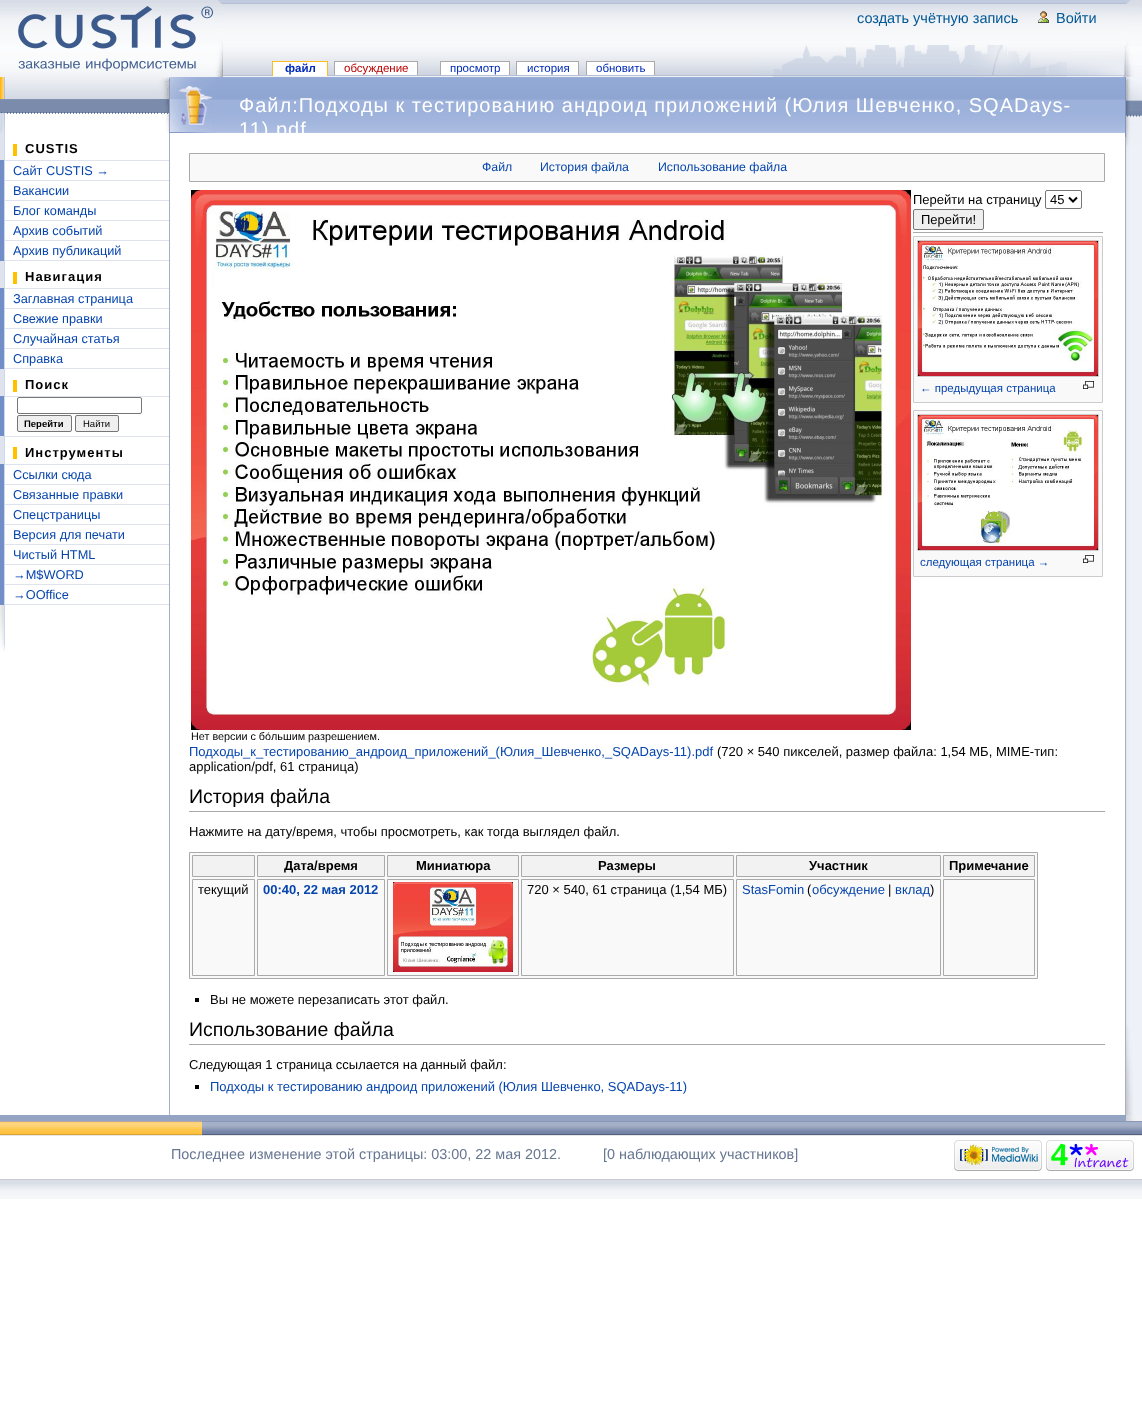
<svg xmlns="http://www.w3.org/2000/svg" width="1142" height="1425">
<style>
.a{font:14.5px Liberation Sans;fill:#005896}
.b{font:bold 11.5px Liberation Sans;fill:#002bb8}
.c{font:11.5px Liberation Sans;fill:#ba0000}
.d{font:11.5px Liberation Sans;fill:#002bb8}
.e{font:bold 13px Liberation Sans;letter-spacing:1px;fill:#000}
.f{font:12.75px Liberation Sans;fill:#0645ad}
.g{font:bold 9.5px Liberation Sans;fill:#000}
.h{font:9.5px Liberation Sans;fill:#000}
.i{font:20px Liberation Sans;letter-spacing:1px;fill:#fff}
.j{font:12.3px Liberation Sans;fill:#0645ad}
.k{font:13px Liberation Sans;fill:#000}
.l{font:11.5px Liberation Sans;fill:#0645ad}
.m{font:10.8px Liberation Sans;fill:#000}
.n{font:13px Liberation Sans;fill:#0645ad}
.o{font:19.5px Liberation Sans;fill:#000}
.p{font:bold 13px Liberation Sans;fill:#000}
.q{font:bold 13px Liberation Sans;fill:#0645ad}
.r{font:14.4px Liberation Sans;fill:#677691}
</style>
<rect width="100%" height="100%" fill="#fff"/>
<image href="1.png" x="0" y="0" width="1125" height="77"/>
<image href="2.png" x="0" y="0" width="215" height="76"/>
<image href="3.png" x="18" y="6" width="195" height="65"/>
<image href="4.png" x="215" y="0" width="8" height="77"/>
<image href="5.png" x="1038" y="11" width="11" height="12"/>
<image href="6.png" x="1125" y="0" width="17" height="77"/>
<image href="7.png" x="758" y="45" width="367" height="32"/>
<path fill="#fff" d="M273 62h54v14H273z"/>
<path fill="#fabd23" d="M272 61h56v1H272z"/>
<path fill="#fabd23" d="M327 61h1v15H327z"/>
<path fill="#fabd23" d="M272 61h1v15H272z"/>
<path fill="#fff" d="M335 62h82v13H335z"/>
<path fill="#aaa" d="M334 61h84v1H334z"/>
<path fill="#aaa" d="M417 61h1v14H417z"/>
<path fill="#aaa" d="M334 61h1v14H334z"/>
<path fill="#fff" d="M441 62h68v13H441z"/>
<path fill="#aaa" d="M440 61h70v1H440z"/>
<path fill="#aaa" d="M509 61h1v14H509z"/>
<path fill="#aaa" d="M440 61h1v14H440z"/>
<path fill="#fff" d="M517 62h61v13H517z"/>
<path fill="#aaa" d="M516 61h63v1H516z"/>
<path fill="#aaa" d="M578 61h1v14H578z"/>
<path fill="#aaa" d="M516 61h1v14H516z"/>
<path fill="#fff" d="M587 62h67v13H587z"/>
<path fill="#aaa" d="M586 61h69v1H586z"/>
<path fill="#aaa" d="M654 61h1v14H654z"/>
<path fill="#aaa" d="M586 61h1v14H586z"/>
<image href="8.png" x="0" y="77" width="5" height="56"/>
<image href="9.png" x="5" y="77" width="154" height="37"/>
<image href="10.png" x="159" y="77" width="10" height="56"/>
<path fill="#dee3ee" d="M0 133h4v27H0z"/>
<path fill="#cdd8ed" d="M4 133h1v27H4z"/>
<path fill="#ffc000" d="M13 144h4v12H13z"/>
<path fill="#728ec9" d="M0 160h5v1H0z"/>
<path fill="#cdd8ed" d="M4 160h1v20H4z"/>
<path fill="#dee3ee" d="M5 160h164v1H5z"/>
<path fill="#728ec9" d="M0 161h4v19H0z"/>
<path fill="#728ec9" d="M0 180h5v1H0z"/>
<path fill="#cdd8ed" d="M4 180h1v20H4z"/>
<path fill="#dee3ee" d="M5 180h164v1H5z"/>
<path fill="#728ec9" d="M0 181h4v19H0z"/>
<path fill="#728ec9" d="M0 200h5v1H0z"/>
<path fill="#cdd8ed" d="M4 200h1v20H4z"/>
<path fill="#dee3ee" d="M5 200h164v1H5z"/>
<path fill="#728ec9" d="M0 201h4v19H0z"/>
<path fill="#728ec9" d="M0 220h5v1H0z"/>
<path fill="#cdd8ed" d="M4 220h1v20H4z"/>
<path fill="#dee3ee" d="M5 220h164v1H5z"/>
<path fill="#728ec9" d="M0 221h4v19H0z"/>
<path fill="#728ec9" d="M0 240h5v1H0z"/>
<path fill="#cdd8ed" d="M4 240h1v20H4z"/>
<path fill="#dee3ee" d="M5 240h164v1H5z"/>
<path fill="#728ec9" d="M0 241h4v19H0z"/>
<path fill="#728ec9" d="M0 260h5v1H0z"/>
<path fill="#cdd8ed" d="M4 260h1v28H4z"/>
<path fill="#dee3ee" d="M5 260h164v1H5z"/>
<path fill="#dee3ee" d="M0 261h4v27H0z"/>
<path fill="#ffc000" d="M13 272h4v12H13z"/>
<path fill="#728ec9" d="M0 288h5v1H0z"/>
<path fill="#cdd8ed" d="M4 288h1v20H4z"/>
<path fill="#dee3ee" d="M5 288h164v1H5z"/>
<path fill="#728ec9" d="M0 289h4v19H0z"/>
<path fill="#728ec9" d="M0 308h5v1H0z"/>
<path fill="#cdd8ed" d="M4 308h1v20H4z"/>
<path fill="#dee3ee" d="M5 308h164v1H5z"/>
<path fill="#728ec9" d="M0 309h4v19H0z"/>
<path fill="#728ec9" d="M0 328h5v1H0z"/>
<path fill="#cdd8ed" d="M4 328h1v20H4z"/>
<path fill="#dee3ee" d="M5 328h164v1H5z"/>
<path fill="#728ec9" d="M0 329h4v19H0z"/>
<path fill="#728ec9" d="M0 348h5v1H0z"/>
<path fill="#cdd8ed" d="M4 348h1v20H4z"/>
<path fill="#dee3ee" d="M5 348h164v1H5z"/>
<path fill="#728ec9" d="M0 349h4v19H0z"/>
<path fill="#728ec9" d="M0 368h5v1H0z"/>
<path fill="#cdd8ed" d="M4 368h1v28H4z"/>
<path fill="#dee3ee" d="M5 368h164v1H5z"/>
<path fill="#dee3ee" d="M0 369h4v27H0z"/>
<path fill="#ffc000" d="M13 380h4v12H13z"/>
<path fill="#728ec9" d="M0 396h5v1H0z"/>
<path fill="#cdd8ed" d="M4 396h1v40H4z"/>
<path fill="#dee3ee" d="M5 396h164v1H5z"/>
<path fill="#728ec9" d="M0 397h4v39H0z"/>
<rect fill="none" stroke="#767676" x="17.5" y="397.5" width="124" height="16" rx="1.5"/>
<rect fill="#efefef" stroke="#767676" x="17.5" y="415.5" width="54" height="16" rx="1.5"/>
<rect fill="#efefef" stroke="#767676" x="75.5" y="415.5" width="43" height="16" rx="1.5"/>
<path fill="#dee3ee" d="M0 436h169v1H0z"/>
<path fill="#cdd8ed" d="M4 436h1v28H4z"/>
<path fill="#dee3ee" d="M0 437h4v27H0z"/>
<path fill="#ffc000" d="M13 447h4v12H13z"/>
<path fill="#728ec9" d="M0 464h5v1H0z"/>
<path fill="#cdd8ed" d="M4 464h1v20H4z"/>
<path fill="#dee3ee" d="M5 464h164v1H5z"/>
<path fill="#728ec9" d="M0 465h4v19H0z"/>
<path fill="#728ec9" d="M0 484h5v1H0z"/>
<path fill="#cdd8ed" d="M4 484h1v20H4z"/>
<path fill="#dee3ee" d="M5 484h164v1H5z"/>
<path fill="#728ec9" d="M0 485h4v19H0z"/>
<path fill="#728ec9" d="M0 504h5v1H0z"/>
<path fill="#cdd8ed" d="M4 504h1v20H4z"/>
<path fill="#dee3ee" d="M5 504h164v1H5z"/>
<path fill="#728ec9" d="M0 505h4v19H0z"/>
<path fill="#728ec9" d="M0 524h5v1H0z"/>
<path fill="#cdd8ed" d="M4 524h1v20H4z"/>
<path fill="#dee3ee" d="M5 524h164v1H5z"/>
<path fill="#728ec9" d="M0 525h4v19H0z"/>
<path fill="#728ec9" d="M0 544h5v1H0z"/>
<path fill="#cdd8ed" d="M4 544h1v20H4z"/>
<path fill="#dee3ee" d="M5 544h164v1H5z"/>
<path fill="#728ec9" d="M0 545h4v19H0z"/>
<path fill="#728ec9" d="M0 564h5v1H0z"/>
<path fill="#cdd8ed" d="M4 564h1v20H4z"/>
<path fill="#dee3ee" d="M5 564h164v1H5z"/>
<path fill="#728ec9" d="M0 565h4v19H0z"/>
<path fill="#728ec9" d="M0 584h5v1H0z"/>
<path fill="#cdd8ed" d="M4 584h1v20H4z"/>
<path fill="#dee3ee" d="M5 584h164v1H5z"/>
<path fill="#728ec9" d="M0 585h4v19H0z"/>
<path fill="#728ec9" d="M0 604h5v1H0z"/>
<path fill="#cdd8ed" d="M4 604h1v1H4z"/>
<path fill="#dee3ee" d="M5 604h164v1H5z"/>
<image href="11.png" x="0" y="605" width="5" height="47"/>
<path fill="#a2b0cb" d="M169 133h1v982H169z"/>
<image href="12.png" x="216" y="77" width="909" height="56"/>
<image href="13.png" x="169" y="77" width="47" height="56"/>
<path fill="#f9f9f9" stroke="#aaa" d="M189.5 153.5h915v28H189.5z"/>
<rect fill="none" stroke="#767676" x="1045.5" y="190.5" width="36" height="18" rx="1.5"/>
<path fill="none" stroke="#000" stroke-width="2" d="M1069 197.5l4 4l4-4"/>
<rect fill="#efefef" stroke="#767676" x="913.5" y="209.5" width="70" height="20" rx="1.5"/>
<path fill="#aaa" d="M913 232h190v1H913z"/>
<path fill="#f9f9f9" stroke="#ccc" d="M913.5 236.5h189v166H913.5z"/>
<path fill="none" stroke="#ccc" d="M917.5 240.5h181v136H917.5z"/>
<image href="14.png" x="918" y="241" width="180" height="135"/>
<image href="15.png" x="1083" y="381" width="11" height="8"/>
<path fill="#f9f9f9" stroke="#ccc" d="M913.5 410.5h189v166H913.5z"/>
<path fill="none" stroke="#ccc" d="M917.5 414.5h181v136H917.5z"/>
<image href="16.png" x="918" y="415" width="180" height="135"/>
<image href="15.png" x="1083" y="555" width="11" height="8"/>
<image href="17.png" x="191" y="190" width="720" height="540"/>
<path fill="#aaa" d="M189 811h916v1H189z"/>
<path fill="#f9f9f9" stroke="#aaa" d="M189.5 852.5h848v126H189.5z"/>
<path fill="#f2f2f2" stroke="#aaa" d="M192.5 855.5h62v21H192.5z"/>
<path fill="#f2f2f2" stroke="#aaa" d="M257.5 855.5h127v21H257.5z"/>
<path fill="#f2f2f2" stroke="#aaa" d="M387.5 855.5h131v21H387.5z"/>
<path fill="#f2f2f2" stroke="#aaa" d="M521.5 855.5h212v21H521.5z"/>
<path fill="#f2f2f2" stroke="#aaa" d="M736.5 855.5h204v21H736.5z"/>
<path fill="#f2f2f2" stroke="#aaa" d="M943.5 855.5h91v21H943.5z"/>
<path fill="none" stroke="#aaa" d="M192.5 879.5h62v96H192.5z"/>
<path fill="none" stroke="#aaa" d="M257.5 879.5h127v96H257.5z"/>
<path fill="none" stroke="#aaa" d="M387.5 879.5h131v96H387.5z"/>
<image href="18.png" x="393" y="882" width="120" height="90"/>
<path fill="none" stroke="#aaa" d="M521.5 879.5h212v96H521.5z"/>
<path fill="none" stroke="#aaa" d="M736.5 879.5h204v96H736.5z"/>
<path fill="none" stroke="#aaa" d="M943.5 879.5h91v96H943.5z"/>
<path fill="#000" d="M195 998h4v4H195z"/>
<path fill="#aaa" d="M189 1044h916v1H189z"/>
<path fill="#000" d="M195 1085h4v4H195z"/>
<image href="19.png" x="1125" y="147" width="17" height="829"/>
<image href="20.png" x="1125" y="77" width="17" height="70"/>
<image href="21.png" x="1125" y="976" width="17" height="139"/>
<image href="22.png" x="1126" y="1026" width="7" height="89"/>
<path fill="#96a4c4" d="M0 1115h1125v6H0z"/>
<image href="23.png" x="1125" y="1115" width="17" height="6"/>
<image href="24.png" x="0" y="1121" width="202" height="15"/>
<image href="25.png" x="202" y="1121" width="923" height="15"/>
<image href="26.png" x="1125" y="1121" width="17" height="15"/>
<image href="27.png" x="954" y="1140" width="88" height="31"/>
<image href="28.png" x="1046" y="1140" width="88" height="31"/>
<image href="29.png" x="0" y="1179" width="1142" height="20"/>
<text class="a" x="857" y="23">создать учётную запись</text>
<text class="a" x="1056" y="23">Войти</text>
<text class="b" x="285" y="72">файл</text>
<text class="c" x="344" y="72">обсуждение</text>
<text class="d" x="450" y="72">просмотр</text>
<text class="d" x="527" y="72">история</text>
<text class="d" x="596" y="72">обновить</text>
<text class="e" x="25" y="153">CUSTIS</text>
<text class="f" x="13" y="175">Сайт CUSTIS →</text>
<text class="f" x="13" y="195">Вакансии</text>
<text class="f" x="13" y="215">Блог команды</text>
<text class="f" x="13" y="235">Архив событий</text>
<text class="f" x="13" y="255">Архив публикаций</text>
<text class="e" x="25" y="281">Навигация</text>
<text class="f" x="13" y="303">Заглавная страница</text>
<text class="f" x="13" y="323">Свежие правки</text>
<text class="f" x="13" y="343">Случайная статья</text>
<text class="f" x="13" y="363">Справка</text>
<text class="e" x="25" y="389">Поиск</text>
<text class="g" x="24" y="427">Перейти</text>
<text class="h" x="83" y="427">Найти</text>
<text class="e" x="25" y="457">Инструменты</text>
<text class="f" x="13" y="479">Ссылки сюда</text>
<text class="f" x="13" y="499">Связанные правки</text>
<text class="f" x="13" y="519">Спецстраницы</text>
<text class="f" x="13" y="539">Версия для печати</text>
<text class="f" x="13" y="559">Чистый HTML</text>
<text class="f" x="13" y="579">→M$WORD</text>
<text class="f" x="13" y="599">→OOffice</text>
<text class="i" x="239" y="112">Файл:Подходы к тестированию андроид приложений (Юлия Шевченко, SQADays-</text>
<text class="i" x="239" y="136">11).pdf</text>
<text class="j" x="482" y="171">Файл</text>
<text class="j" x="540" y="171">История файла</text>
<text class="j" x="658" y="171">Использование файла</text>
<text class="k" x="913" y="204">Перейти на страницу</text>
<text class="k" x="1050" y="204">45</text>
<text class="k" x="921" y="224">Перейти!</text>
<text class="l" x="920" y="392">← предыдущая страница</text>
<text class="l" x="920" y="566">следующая страница →</text>
<text class="m" x="191" y="740">Нет версии с бо́льшим разрешением.</text>
<text class="n" x="189" y="756">Подходы_к_тестированию_андроид_приложений_(Юлия_Шевченко,_SQADays-11).pdf</text>
<text class="k" x="717" y="756">(720 × 540 пикселей, размер файла: 1,54 МБ, MIME-тип:</text>
<text class="k" x="189" y="771">application/pdf, 61 страница)</text>
<text class="o" x="189" y="803">История файла</text>
<text class="k" x="189" y="836">Нажмите на дату/время, чтобы просмотреть, как тогда выглядел файл.</text>
<text class="p" x="284" y="870">Дата/время</text>
<text class="p" x="416" y="870">Миниатюра</text>
<text class="p" x="598" y="870">Размеры</text>
<text class="p" x="809" y="870">Участник</text>
<text class="p" x="949" y="870">Примечание</text>
<text class="k" x="198" y="894">текущий</text>
<text class="q" x="263" y="894">00:40, 22 мая 2012</text>
<text class="k" x="527" y="894">720 × 540, 61 страница (1,54 МБ)</text>
<text class="n" x="742" y="894">StasFomin</text>
<text class="k" x="807" y="894">(</text>
<text class="n" x="812" y="894">обсуждение</text>
<text class="k" x="888" y="894">|</text>
<text class="n" x="895" y="894">вклад</text>
<text class="k" x="930" y="894">)</text>
<text class="k" x="210" y="1004">Вы не можете перезаписать этот файл.</text>
<text class="o" x="189" y="1036">Использование файла</text>
<text class="k" x="189" y="1069">Следующая 1 страница ссылается на данный файл:</text>
<text class="n" x="210" y="1091">Подходы к тестированию андроид приложений (Юлия Шевченко, SQADays-11)</text>
<text class="r" x="171" y="1159">Последнее изменение этой страницы: 03:00, 22 мая 2012.</text>
<text class="r" x="603" y="1159">[0 наблюдающих участников]</text>
</svg>
